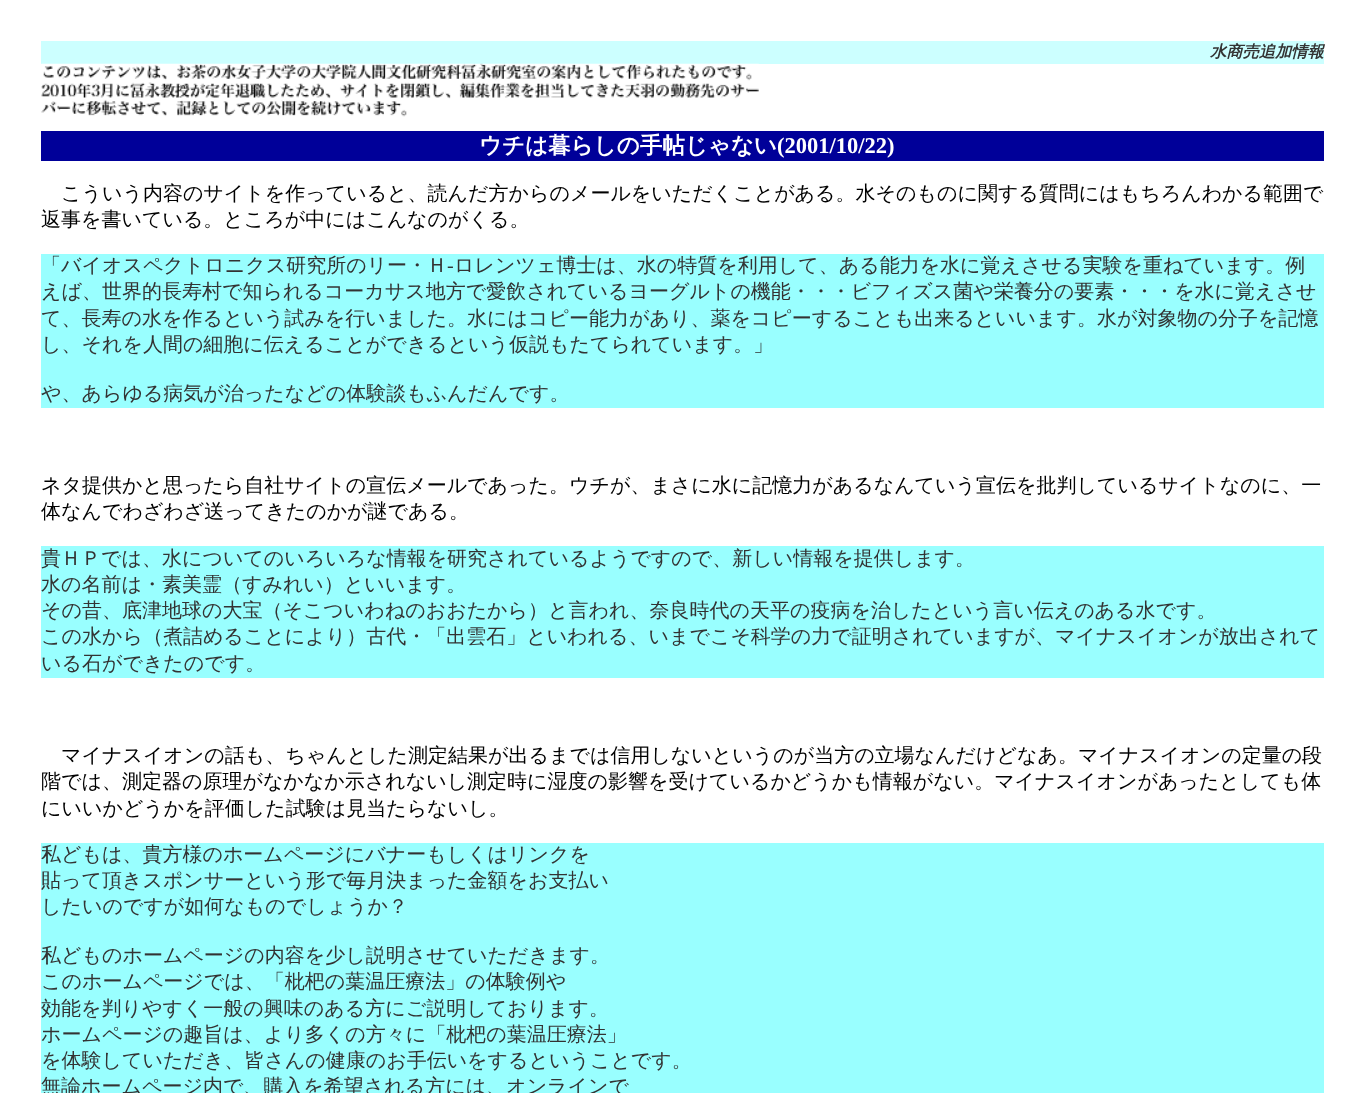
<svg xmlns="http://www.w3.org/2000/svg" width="1364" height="1093">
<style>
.a{font:italic bold 16.25px WenQuanYi Zen Hei;fill:#333}
.b{font:bold 22.5px WenQuanYi Zen Hei;fill:#fff}
.c{font:bold 22.5px Liberation Serif;fill:#fff}
.d{font:500 20px WenQuanYi Zen Hei;fill:#000}
.e{font:500 20px WenQuanYi Zen Hei;fill:#333}
.f{font:20px Liberation Serif;fill:#333}
</style>
<rect width="100%" height="100%" fill="#fff"/>
<path fill="#cff" d="M41 41h1283v23H41z"/>
<image href="1.png" x="41" y="63" width="718" height="54"/>
<path fill="#009" d="M41 131h1283v30H41z"/>
<path fill="#9ff" d="M41 254h1283v154H41z"/>
<path fill="#9ff" d="M41 546h1283v132H41z"/>
<path fill="#9ff" d="M41 843h1283v250H41z"/>
<text class="a" x="1210" y="57">水商売追加情報</text>
<text class="b" x="479" y="153">ウチは暮らしの手帖じゃない</text>
<text class="c" x="777" y="153">(2001/10/22)</text>
<text class="d" x="61" y="200">こういう内容のサイトを作っていると、読んだ方からのメールをいただくことがある。水そのものに関する質問にはもちろんわかる範囲で</text>
<text class="d" x="41" y="226">返事を書いている。ところが中にはこんなのがくる。</text>
<text class="e" x="41" y="272">「バイオスペクトロニクス研究所のリー・Ｈ</text>
<text class="f" x="447" y="272">‐</text>
<text class="e" x="454" y="272">ロレンツェ博士は、水の特質を利用して、ある能力を水に覚えさせる実験を重ねています。例</text>
<text class="e" x="41" y="298">えば、世界的長寿村で知られるコーカサス地方で愛飲されているヨーグルトの機能・・・ビフィズス菌や栄養分の要素・・・を水に覚えさせ</text>
<text class="e" x="41" y="325">て、長寿の水を作るという試みを行いました。水にはコピー能力があり、薬をコピーすることも出来るといいます。水が対象物の分子を記憶</text>
<text class="e" x="41" y="351">し、それを人間の細胞に伝えることができるという仮説もたてられています。」</text>
<text class="e" x="41" y="400">や、あらゆる病気が治ったなどの体験談もふんだんです。</text>
<text class="d" x="41" y="492">ネタ提供かと思ったら自社サイトの宣伝メールであった。ウチが、まさに水に記憶力があるなんていう宣伝を批判しているサイトなのに、一</text>
<text class="d" x="41" y="518">体なんでわざわざ送ってきたのかが謎である。</text>
<text class="e" x="41" y="565">貴ＨＰでは、水についてのいろいろな情報を研究されているようですので、新しい情報を提供します。</text>
<text class="e" x="41" y="591">水の名前は・素美霊（すみれい）といいます。</text>
<text class="e" x="41" y="617">その昔、底津地球の大宝（そこついわねのおおたから）と言われ、奈良時代の天平の疫病を治したという言い伝えのある水です。</text>
<text class="e" x="41" y="643">この水から（煮詰めることにより）古代・「出雲石」といわれる、いまでこそ科学の力で証明されていますが、マイナスイオンが放出されて</text>
<text class="e" x="41" y="670">いる石ができたのです。</text>
<text class="d" x="61" y="762">マイナスイオンの話も、ちゃんとした測定結果が出るまでは信用しないというのが当方の立場なんだけどなあ。マイナスイオンの定量の段</text>
<text class="d" x="41" y="788">階では、測定器の原理がなかなか示されないし測定時に湿度の影響を受けているかどうかも情報がない。マイナスイオンがあったとしても体</text>
<text class="d" x="41" y="815">にいいかどうかを評価した試験は見当たらないし。</text>
<text class="e" x="41" y="861">私どもは、貴方様のホームページにバナーもしくはリンクを</text>
<text class="e" x="41" y="887">貼って頂きスポンサーという形で毎月決まった金額をお支払い</text>
<text class="e" x="41" y="913">したいのですが如何なものでしょうか？</text>
<text class="e" x="41" y="962">私どものホームページの内容を少し説明させていただきます。</text>
<text class="e" x="41" y="988">このホームページでは、「枇杷の葉温圧療法」の体験例や</text>
<text class="e" x="41" y="1015">効能を判りやすく一般の興味のある方にご説明しております。</text>
<text class="e" x="41" y="1041">ホームページの趣旨は、より多くの方々に「枇杷の葉温圧療法」</text>
<text class="e" x="41" y="1067">を体験していただき、皆さんの健康のお手伝いをするということです。</text>
<text class="e" x="41" y="1093">無論ホームページ内で、購入を希望される方には、オンラインで</text>
</svg>
